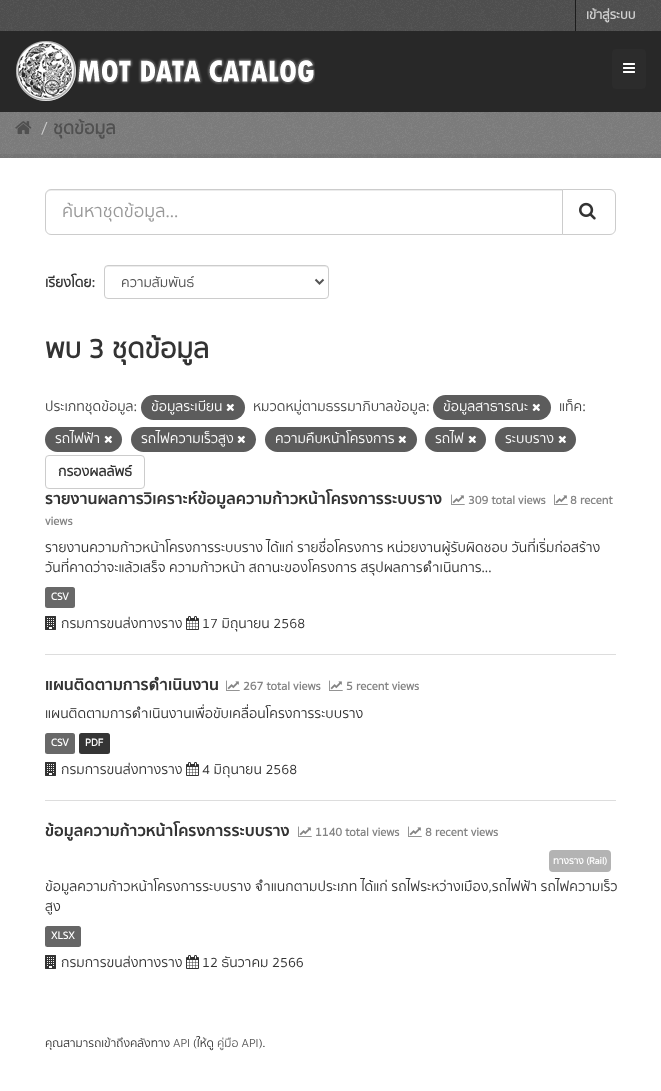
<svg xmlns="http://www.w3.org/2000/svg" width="661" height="1091">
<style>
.a{font:bold 13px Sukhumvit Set;fill:#d2d2d2}
.b{font:18px Sukhumvit Set;fill:#ccc}
.c{font:bold 18px Sukhumvit Set;fill:#505050}
.d{font:18px Sukhumvit Set;fill:#999}
.e{font:bold 14px Sukhumvit Set;fill:#333}
.f{font:14px Sukhumvit Set;fill:#505050}
.g{font:bold 28px Sukhumvit Set;fill:#333}
.h{font:14px Sukhumvit Set;fill:#444}
.i{font:14px Sukhumvit Set;fill:#fff}
.j{font:bold 16px 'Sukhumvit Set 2';fill:#333}
.k{font:bold 12px Sukhumvit Set;fill:#848484}
.l{font:14px Sukhumvit Set;fill:#333}
.m{font:bold 10.5px Sukhumvit Set;fill:#fff}
.n{font:bold 9.75px Sukhumvit Set;fill:#fff}
.o{font:11.9px Sukhumvit Set;fill:#333}
.p{font:11.9px Sukhumvit Set;fill:#5d5d5d}
</style>
<defs>
<clipPath id="clip1"><path d="M62 199h484v26H62z"/></clipPath>
</defs>
<rect width="100%" height="100%" fill="#7f7f7f"/>
<image href="1.png" x="0" y="112" width="661" height="46"/>
<path fill="#515151" d="M0 0h661v31H0z"/>
<image href="2.png" x="0" y="0" width="661" height="31"/>
<path fill="#1c1c1c" d="M575 0h1v31H575z"/>
<path fill="#282828" d="M0 31h661v81H0z"/>
<image href="3.png" x="16" y="41" width="299" height="60"/>
<rect fill="#2c2c2c" x="612" y="49" width="34" height="40" rx="4"/>
<image href="4.png" x="623" y="63" width="12" height="10"/>
<image href="5.png" x="15" y="121" width="17" height="13"/>
<path fill="none" stroke="#0000000d" stroke-width="4" d="M-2 156h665v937H-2z"/>
<path fill="#fff" d="M0 158h661v933H0z"/>
<path fill="#ececec" d="M51 191h511v-1h-511c-3 0-5 2-5 5v1c0-3 2-5 5-5z"/>
<path fill="none" stroke="#ccc" d="M51 189.5h511.5v45h-511.5c-3 0-5.5-2.5-5.5-5.5v-34c0-3 2.5-5.5 5.5-5.5z"/>
<path fill="#fff" stroke="#ccc" d="M562.5 189.5h47.5c3 0 5.5 2.5 5.5 5.5v34c0 3-2.5 5.5-5.5 5.5h-47.5z"/>
<image href="6.png" x="579" y="202" width="17" height="18"/>
<path fill="#ececec" d="M108 267h217c2 0 3 1 3 3v-1c0-2-1-3-3-3h-217c-2 0-3 1-3 3v1c0-2 1-3 3-3z"/>
<rect fill="none" stroke="#ccc" x="104.5" y="265.5" width="224" height="33" rx="3.5"/>
<path fill="none" stroke="#555" stroke-width="2" d="M315.5 279.5l4 4l4-4"/>
<rect fill="#5c5c5c" x="141" y="395" width="104" height="25" rx="12.5"/>
<image href="7.png" x="226" y="403" width="8" height="9"/>
<rect fill="#5c5c5c" x="433" y="395" width="118" height="25" rx="12.5"/>
<image href="7.png" x="532" y="403" width="8" height="9"/>
<rect fill="#5c5c5c" x="45" y="427" width="77" height="25" rx="12.5"/>
<image href="7.png" x="104" y="435" width="8" height="9"/>
<rect fill="#5c5c5c" x="131" y="427" width="125" height="25" rx="12.5"/>
<image href="7.png" x="237" y="435" width="8" height="9"/>
<rect fill="#5c5c5c" x="265" y="427" width="152" height="25" rx="12.5"/>
<image href="7.png" x="398" y="435" width="8" height="9"/>
<rect fill="#5c5c5c" x="425" y="427" width="61" height="25" rx="12.5"/>
<image href="7.png" x="468" y="435" width="8" height="9"/>
<rect fill="#5c5c5c" x="495" y="427" width="81" height="25" rx="12.5"/>
<image href="7.png" x="558" y="435" width="8" height="9"/>
<rect fill="none" stroke="#ccc" x="45.5" y="455.5" width="99" height="33" rx="3.5"/>
<path fill="#ddd" d="M45 654h571v1H45z"/>
<image href="8.png" x="451" y="494" width="14" height="11"/>
<image href="8.png" x="554" y="494" width="14" height="11"/>
<rect fill="#686868" x="45" y="587" width="30" height="21" rx="2.5"/>
<image href="9.png" x="45" y="616" width="11" height="14"/>
<image href="10.png" x="186" y="616" width="13" height="14"/>
<path fill="#ddd" d="M45 800h571v1H45z"/>
<image href="8.png" x="226" y="680" width="14" height="11"/>
<image href="8.png" x="329" y="680" width="14" height="11"/>
<rect fill="#686868" x="45" y="733" width="30" height="21" rx="2.5"/>
<rect fill="#353535" x="79" y="733" width="31" height="21" rx="2.5"/>
<image href="9.png" x="45" y="762" width="11" height="14"/>
<image href="10.png" x="186" y="762" width="13" height="14"/>
<image href="8.png" x="298" y="826" width="14" height="11"/>
<image href="8.png" x="408" y="826" width="14" height="11"/>
<rect fill="#b3b3b3" x="549" y="850" width="62" height="22" rx="4"/>
<rect fill="#666" x="45" y="926" width="36" height="21" rx="2.5"/>
<image href="9.png" x="45" y="955" width="11" height="14"/>
<image href="10.png" x="186" y="955" width="13" height="14"/>
<text class="a" x="586" y="19">เข้าสู่ระบบ</text>
<text class="b" x="41" y="134">/</text>
<text class="c" x="53" y="134">ชุดข้อมูล</text>
<g clip-path="url(#clip1)">
<text class="d" x="62" y="217">ค้นหาชุดข้อมูล...</text>
</g>
<text class="e" x="45" y="287">เรียงโดย:</text>
<text class="f" x="121" y="287">ความสัมพันธ์</text>
<text class="g" x="45" y="358">พบ 3 ชุดข้อมูล</text>
<text class="h" x="45" y="411">ประเภทชุดข้อมูล:</text>
<text class="i" x="151" y="411">ข้อมูลระเบียน</text>
<text class="h" x="253" y="411">หมวดหมู่ตามธรรมาภิบาลข้อมูล:</text>
<text class="i" x="443" y="411">ข้อมูลสาธารณะ</text>
<text class="h" x="559" y="411">แท็ค:</text>
<text class="i" x="55" y="443">รถไฟฟ้า</text>
<text class="i" x="141" y="443">รถไฟความเร็วสูง</text>
<text class="i" x="275" y="443">ความคืบหน้าโครงการ</text>
<text class="i" x="435" y="443">รถไฟ</text>
<text class="i" x="505" y="443">ระบบราง</text>
<text class="e" x="58" y="476">กรองผลลัพธ์</text>
<text class="j" x="45" y="504">รายงานผลการวิเคราะห์ข้อมูลความก้าวหน้าโครงการระบบราง</text>
<text class="k" x="468" y="504">309 total views</text>
<text class="k" x="570" y="504">8 recent</text>
<text class="k" x="45" y="525">views</text>
<text class="l" x="45" y="552">รายงานความก้าวหน้าโครงการระบบราง ได้แก่ รายชื่อโครงการ หน่วยงานผู้รับผิดชอบ วันที่เริ่มก่อสร้าง</text>
<text class="l" x="45" y="572">วันที่คาดว่าจะแล้วเสร็จ ความก้าวหน้า สถานะของโครงการ สรุปผลการดำเนินการ...</text>
<text class="m" x="51" y="600">CSV</text>
<text class="l" x="61" y="628">กรมการขนส่งทางราง</text>
<text class="l" x="202" y="628">17 มิถุนายน 2568</text>
<text class="j" x="45" y="690">แผนติดตามการดำเนินงาน</text>
<text class="k" x="243" y="690">267 total views</text>
<text class="k" x="346" y="690">5 recent views</text>
<text class="l" x="45" y="718">แผนติดตามการดำเนินงานเพื่อขับเคลื่อนโครงการระบบราง</text>
<text class="m" x="51" y="746">CSV</text>
<text class="m" x="85" y="746">PDF</text>
<text class="l" x="61" y="774">กรมการขนส่งทางราง</text>
<text class="l" x="202" y="774">4 มิถุนายน 2568</text>
<text class="j" x="45" y="836">ข้อมูลความก้าวหน้าโครงการระบบราง</text>
<text class="k" x="315" y="836">1140 total views</text>
<text class="k" x="425" y="836">8 recent views</text>
<text class="n" x="553" y="864">ทางราง (Rail)</text>
<text class="l" x="45" y="891">ข้อมูลความก้าวหน้าโครงการระบบราง จำแนกตามประเภท ได้แก่ รถไฟระหว่างเมือง,รถไฟฟ้า รถไฟความเร็ว</text>
<text class="l" x="45" y="911">สูง</text>
<text class="m" x="51" y="939">XLSX</text>
<text class="l" x="61" y="967">กรมการขนส่งทางราง</text>
<text class="l" x="202" y="967">12 ธันวาคม 2566</text>
<text class="o" x="45" y="1047">คุณสามารถเข้าถึงคลังทาง</text>
<text class="p" x="173" y="1047">API</text>
<text class="o" x="193" y="1047">(ให้ดู</text>
<text class="p" x="217" y="1047">คู่มือ API</text>
<text class="o" x="259" y="1047">).</text>
</svg>
